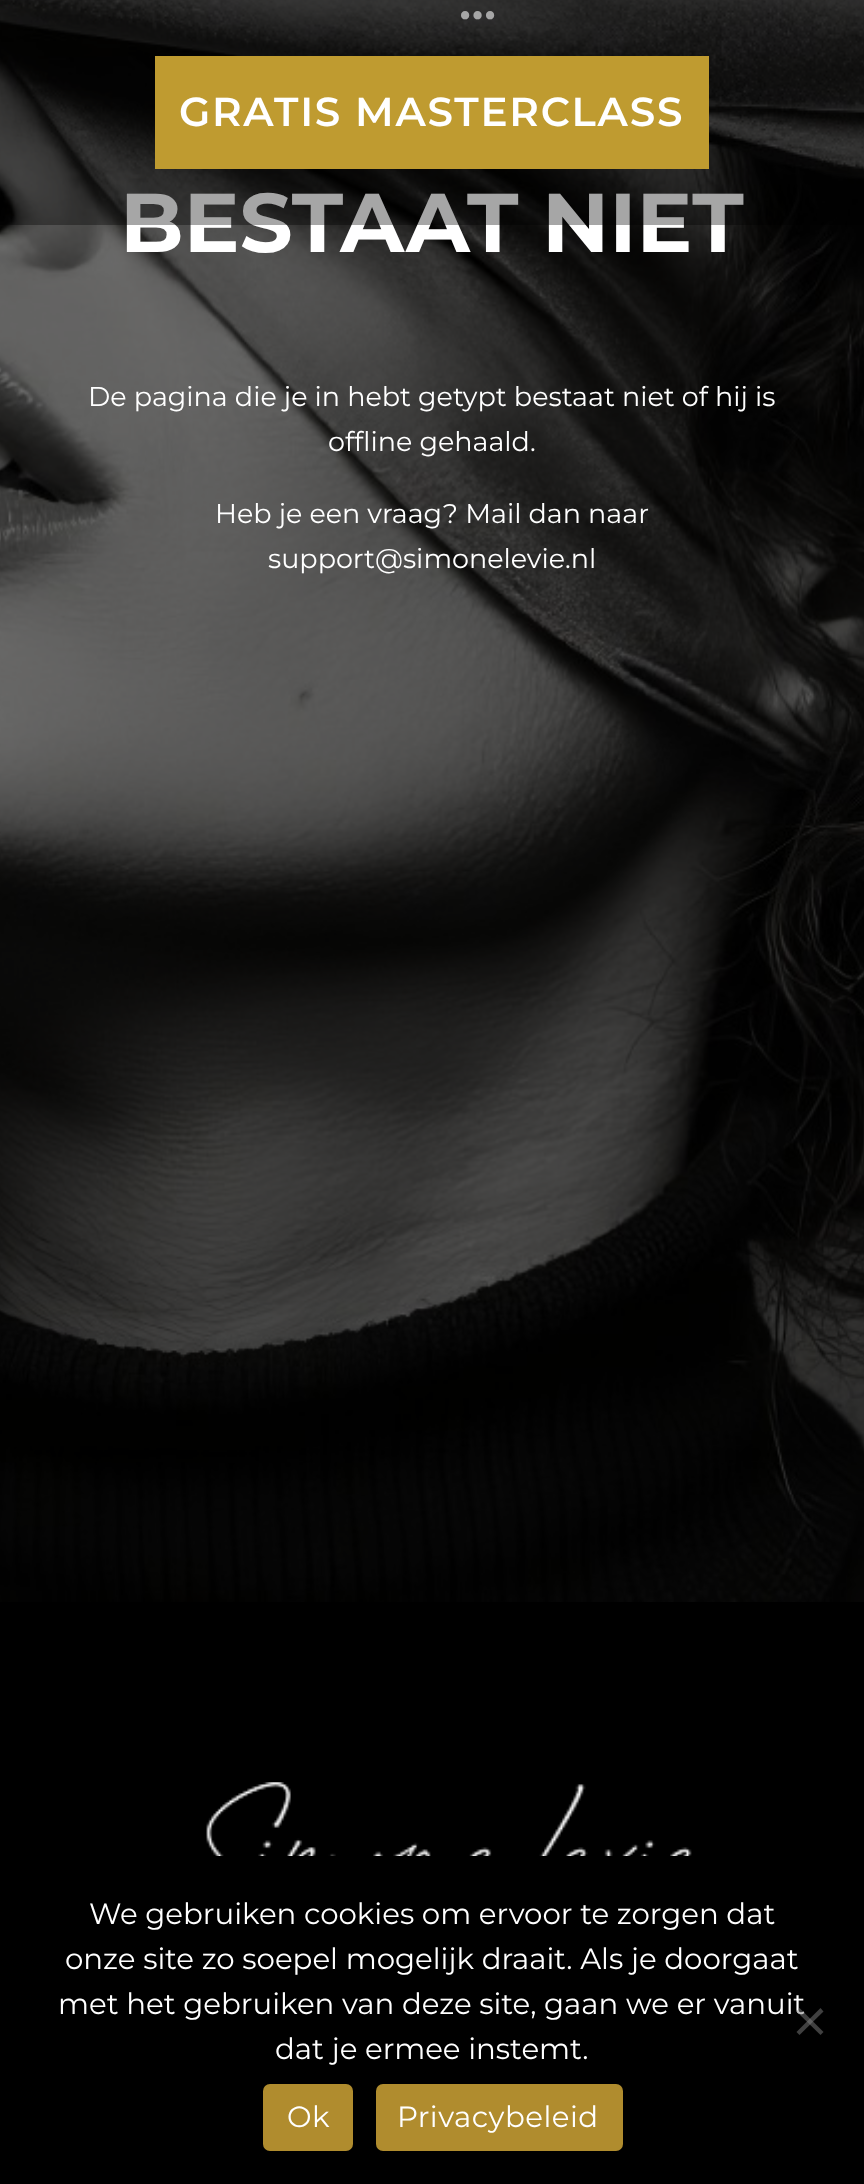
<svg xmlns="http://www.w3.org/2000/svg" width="864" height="2184">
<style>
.a{font:600 50px Montserrat;fill:#fff}
.b{font:bold 83.25px Montserrat;fill:#fff}
.c{font:27px Montserrat;fill:#fff}
.d{font:600 40.5px Montserrat;letter-spacing:1.75px;fill:#fff}
.e{font:29.25px Montserrat;fill:#fff}
.f{font:29.25px Montserrat;letter-spacing:0.5px;fill:#fff}
</style>
<rect width="100%" height="100%" fill="#fff"/>
<image href="1.png" x="0" y="0" width="864" height="1602"/>
<path fill="#000" d="M0 1602h864v582H0z"/>
<image href="2.png" x="206" y="1782" width="486" height="74"/>
<rect fill="#b08c2e" x="263" y="2084" width="90" height="67" rx="7"/>
<rect fill="#b08c2e" x="376" y="2084" width="247" height="67" rx="7"/>
<text class="a" x="459" y="19">…</text>
<text class="b" x="120" y="252">BESTAAT NIET</text>
<text class="c" x="88" y="406">De pagina die je in hebt getypt bestaat niet of hij is</text>
<text class="c" x="328" y="451">offline gehaald.</text>
<text class="c" x="215" y="523">Heb je een vraag? Mail dan naar</text>
<text class="c" x="268" y="568">support@simonelevie.nl</text>
<path fill="#00000059" d="M0 0h864v225H0z"/>
<path fill="#bf9b30" d="M155 56h554v113H155z"/>
<text class="d" x="179" y="126">GRATIS MASTERCLASS</text>
<text class="e" x="89" y="1924">We gebruiken cookies om ervoor te zorgen dat</text>
<text class="e" x="65" y="1969">onze site zo soepel mogelijk draait. Als je doorgaat</text>
<text class="e" x="58" y="2014">met het gebruiken van deze site, gaan we er vanuit</text>
<text class="e" x="275" y="2059">dat je ermee instemt.</text>
<path fill="#404040" d="M820.5 2008l3 3.5l-24 23.5l-3-3z"/>
<path fill="#80808080" d="M796.5 2011.5l3-3.5l24 24l-3 3z"/>
<text class="f" x="287" y="2127">Ok</text>
<text class="f" x="397" y="2127">Privacybeleid</text>
</svg>
